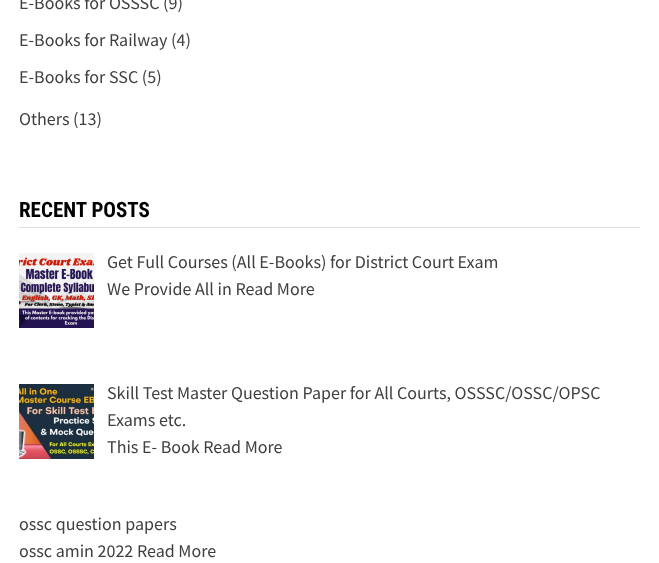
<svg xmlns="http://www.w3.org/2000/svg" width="659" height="563">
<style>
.a{font:18px Source Sans Pro;fill:#404040}
.b{font:bold 21px Roboto Condensed;fill:#000}
</style>
<rect width="100%" height="100%" fill="#fff"/>
<path fill="#ddd" d="M19 227h621v1H19z"/>
<image href="1.png" x="19" y="253" width="75" height="75"/>
<image href="2.png" x="19" y="384" width="75" height="75"/>
<text class="a" x="19" y="9">E-Books for OSSSC (9)</text>
<text class="a" x="19" y="46">E-Books for Railway (4)</text>
<text class="a" x="19" y="83">E-Books for SSC (5)</text>
<text class="a" x="19" y="125">Others (13)</text>
<text class="b" x="19" y="217">RECENT POSTS</text>
<text class="a" x="107" y="268">Get Full Courses (All E-Books) for District Court Exam</text>
<text class="a" x="107" y="295">We Provide All in Read More</text>
<text class="a" x="107" y="399">Skill Test Master Question Paper for All Courts, OSSSC/OSSC/OPSC</text>
<text class="a" x="107" y="426">Exams etc.</text>
<text class="a" x="107" y="453">This E- Book Read More</text>
<text class="a" x="19" y="530">ossc question papers</text>
<text class="a" x="19" y="557">ossc amin 2022 Read More</text>
</svg>
